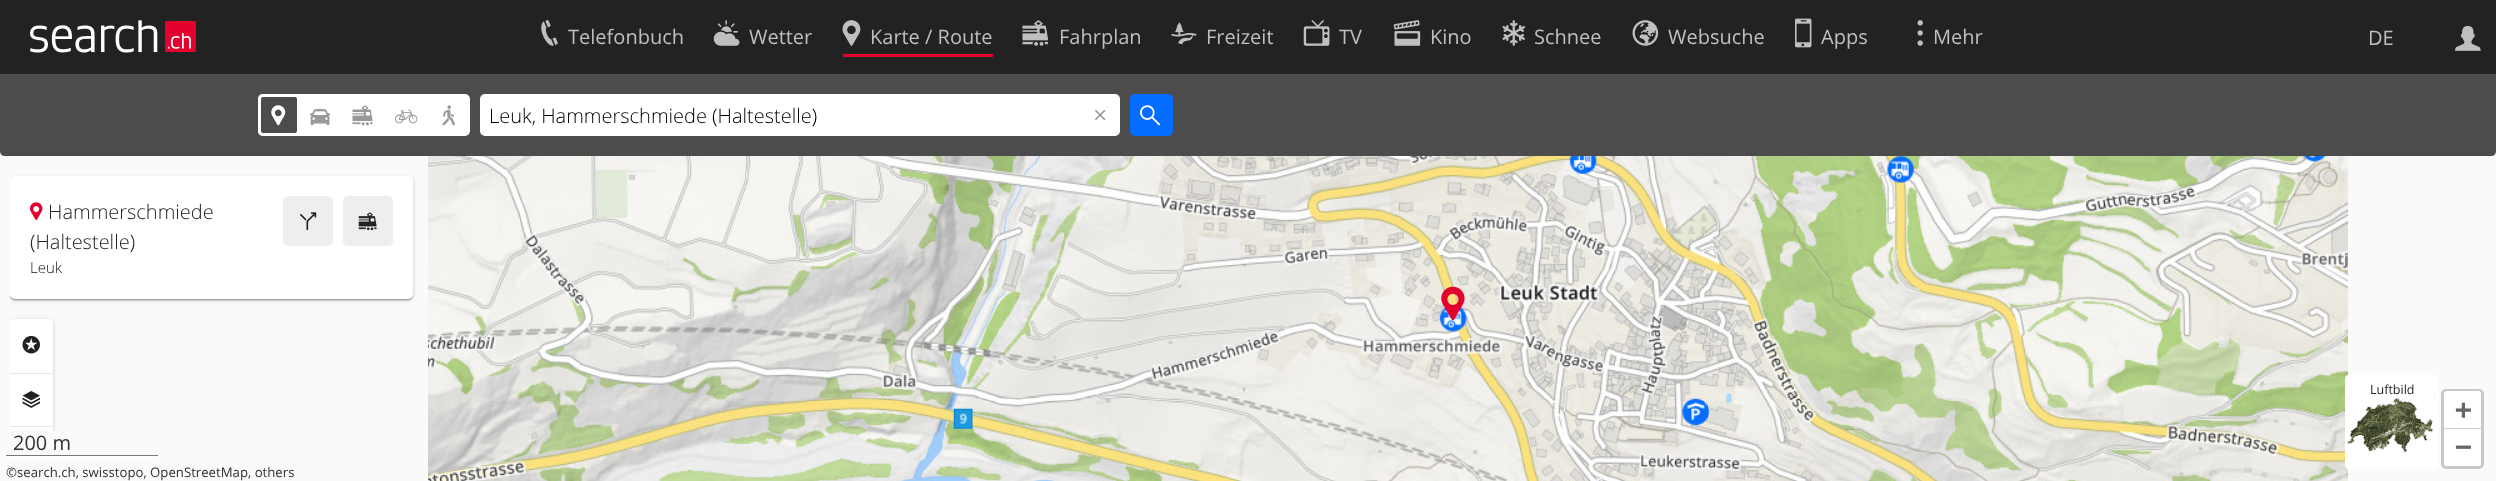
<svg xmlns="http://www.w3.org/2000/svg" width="2496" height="481">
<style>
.a{font:20px Open Sans;fill:#bfbfbf}
.b{font:300 20px Open Sans;fill:#000}
.c{font:300 20px Open Sans;fill:#222}
.d{font:300 15px Open Sans;fill:#111}
.e{font:12.5px Open Sans;fill:#222}
.f{font:bold 28px DejaVu Sans Mono;fill:#666}
.g{font:20px Open Sans;fill:#333}
.h{font:13.2px Open Sans;fill:#333}
</style>
<defs>
<clipPath id="clip1"><path d="M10 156h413v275H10z"/></clipPath>
<clipPath id="clip2"><rect x="10" y="319" width="43" height="161" rx="4"/></clipPath>
</defs>
<rect width="100%" height="100%" fill="#fafafa"/>
<path fill="#222" d="M0 0h2496v74H0z"/>
<image href="1.png" x="30" y="20" width="166" height="33"/>
<image href="2.png" x="541" y="20" width="17" height="26"/>
<image href="3.png" x="713" y="20" width="27" height="26"/>
<path fill="#e4002c" d="M843 54h150v3H843z"/>
<image href="4.png" x="842" y="20" width="19" height="26"/>
<image href="5.png" x="1022" y="20" width="27" height="26"/>
<image href="6.png" x="1171" y="22" width="26" height="23"/>
<image href="7.png" x="1303" y="20" width="27" height="26"/>
<image href="8.png" x="1393" y="20" width="28" height="26"/>
<image href="9.png" x="1502" y="20" width="23" height="26"/>
<image href="10.png" x="1632" y="20" width="27" height="26"/>
<image href="11.png" x="1795" y="18" width="17" height="30"/>
<image href="12.png" x="1917" y="20" width="6" height="26"/>
<image href="13.png" x="2455" y="25" width="26" height="26"/>
<path fill="#4c4c4c" d="M0 74h2496v77c0 3-2 5-5 5h-2486c-3 0-5-2-5-5z"/>
<rect fill="#fff" x="258" y="94" width="212" height="42" rx="5"/>
<rect fill="#4c4c4c" stroke="#fff" stroke-width="3" x="259.5" y="95.5" width="39" height="39" rx="3.5"/>
<image href="14.png" x="271" y="105" width="15" height="21"/>
<image href="15.png" x="310" y="108" width="20" height="18"/>
<image href="16.png" x="352" y="105" width="21" height="21"/>
<image href="17.png" x="395" y="109" width="23" height="15"/>
<image href="18.png" x="442" y="105" width="13" height="21"/>
<rect fill="#fff" x="480" y="94" width="640" height="42" rx="5"/>
<image href="19.png" x="1095" y="110" width="11" height="10"/>
<rect fill="#056dff" x="1130" y="94" width="43" height="42" rx="5"/>
<image href="20.png" x="1140" y="105" width="20" height="21"/>
<g clip-path="url(#clip1)">
<rect fill="#00000033" filter="blur(2px)" x="10" y="178" width="403" height="122" rx="5"/>
</g>
<rect fill="#0000001f" filter="blur(0.5px)" x="10" y="179" width="403" height="122" rx="5"/>
<rect fill="#00000024" filter="blur(0.5px)" x="10" y="178" width="403" height="122" rx="5"/>
<rect fill="#fff" x="10" y="176" width="403" height="123" rx="5"/>
<image href="21.png" x="30" y="202" width="13" height="19"/>
<rect fill="#eee" x="283" y="196" width="50" height="50" rx="5"/>
<image href="22.png" x="300" y="212" width="17" height="19"/>
<rect fill="#eee" x="343" y="196" width="50" height="50" rx="5"/>
<image href="23.png" x="358" y="212" width="19" height="19"/>
<path fill="#fdfdfd" d="M6 431v27h152v-27v25h-152z"/>
<path fill="#fdfdfd" d="M6 454h152v1H6z"/>
<path fill="#777" d="M6 455h152v1H6z"/>
<g clip-path="url(#clip1)">
<rect fill="#00000033" filter="blur(2px)" x="10" y="320" width="43" height="161" rx="5"/>
<rect fill="#0000001f" filter="blur(0.5px)" x="10" y="321" width="43" height="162" rx="5"/>
<rect fill="#00000024" filter="blur(0.5px)" x="10" y="320" width="43" height="161" rx="5"/>
</g>
<path fill="#fff" d="M15 319h33c3 0 5 2 5 5v107h-43v-107c0-3 2-5 5-5z"/>
<g clip-path="url(#clip2)">
<path fill="#fff" d="M15 319h33c3 0 5 2 5 5v50h-43v-50c0-3 2-5 5-5z"/>
</g>
<path fill="#e6e6e6" d="M10 373h43v1H10z"/>
<image href="24.png" x="22" y="335" width="18" height="19"/>
<path fill="#e6e6e6" d="M10 426h43v1H10z"/>
<image href="25.png" x="22" y="391" width="18" height="17"/>
<image href="29.png" x="1708" y="156" width="640" height="245"/>
<image href="32.png" x="1708" y="401" width="640" height="80"/>
<image href="35.png" x="1751" y="156" width="597" height="245"/>
<rect fill="#fff" x="2345" y="375" width="94" height="94" rx="4"/>
<image href="26.png" x="2347" y="398" width="89" height="57"/>
<image href="27.png" x="428" y="156" width="640" height="245"/>
<image href="28.png" x="1068" y="156" width="640" height="245"/>
<image href="30.png" x="428" y="401" width="640" height="80"/>
<image href="31.png" x="1068" y="401" width="640" height="80"/>
<image href="33.png" x="428" y="231" width="490" height="158"/>
<image href="34.png" x="1149" y="156" width="555" height="245"/>
<image href="36.png" x="428" y="408" width="545" height="73"/>
<image href="37.png" x="1594" y="401" width="114" height="80"/>
<image href="38.png" x="1708" y="401" width="572" height="70"/>
<image href="39.png" x="1441" y="286" width="24" height="35"/>
<rect fill="none" stroke="#c8c8c8" stroke-width="3" x="2442.5" y="390.5" width="40" height="77" rx="3.5"/>
<path fill="#fff" d="M2446.5 391h32c1.5 0 2.5 1 2.5 2.5v35.5h-37v-35.5c0-1.5 1-2.5 2.5-2.5z"/>
<path fill="#ccc" d="M2444 428h37v1H2444z"/>
<path fill="#fff" d="M2444 429h37v34.5c0 1.5-1 2.5-2.5 2.5h-32c-1.5 0-2.5-1-2.5-2.5z"/>
<text class="a" x="568" y="44">Telefonbuch</text>
<text class="a" x="749" y="44">Wetter</text>
<text class="a" x="870" y="44">Karte / Route</text>
<text class="a" x="1059" y="44">Fahrplan</text>
<text class="a" x="1206" y="44">Freizeit</text>
<text class="a" x="1339" y="44">TV</text>
<text class="a" x="1430" y="44">Kino</text>
<text class="a" x="1534" y="44">Schnee</text>
<text class="a" x="1668" y="44">Websuche</text>
<text class="a" x="1821" y="44">Apps</text>
<text class="a" x="1933" y="44">Mehr</text>
<text class="a" x="2368" y="45">DE</text>
<text class="b" x="489" y="123">Leuk, Hammerschmiede (Haltestelle)</text>
<text class="c" x="48" y="219">Hammerschmiede</text>
<text class="c" x="30" y="249">(Haltestelle)</text>
<text class="d" x="30" y="273">Leuk</text>
<text class="e" x="2370" y="394">Luftbild</text>
<text class="f" x="2455" y="419">+</text>
<text class="f" x="2455" y="456">−</text>
<text class="g" x="13" y="450">200 m</text>
<text class="h" x="6" y="477">©search.ch, swisstopo, OpenStreetMap, others</text>
</svg>
